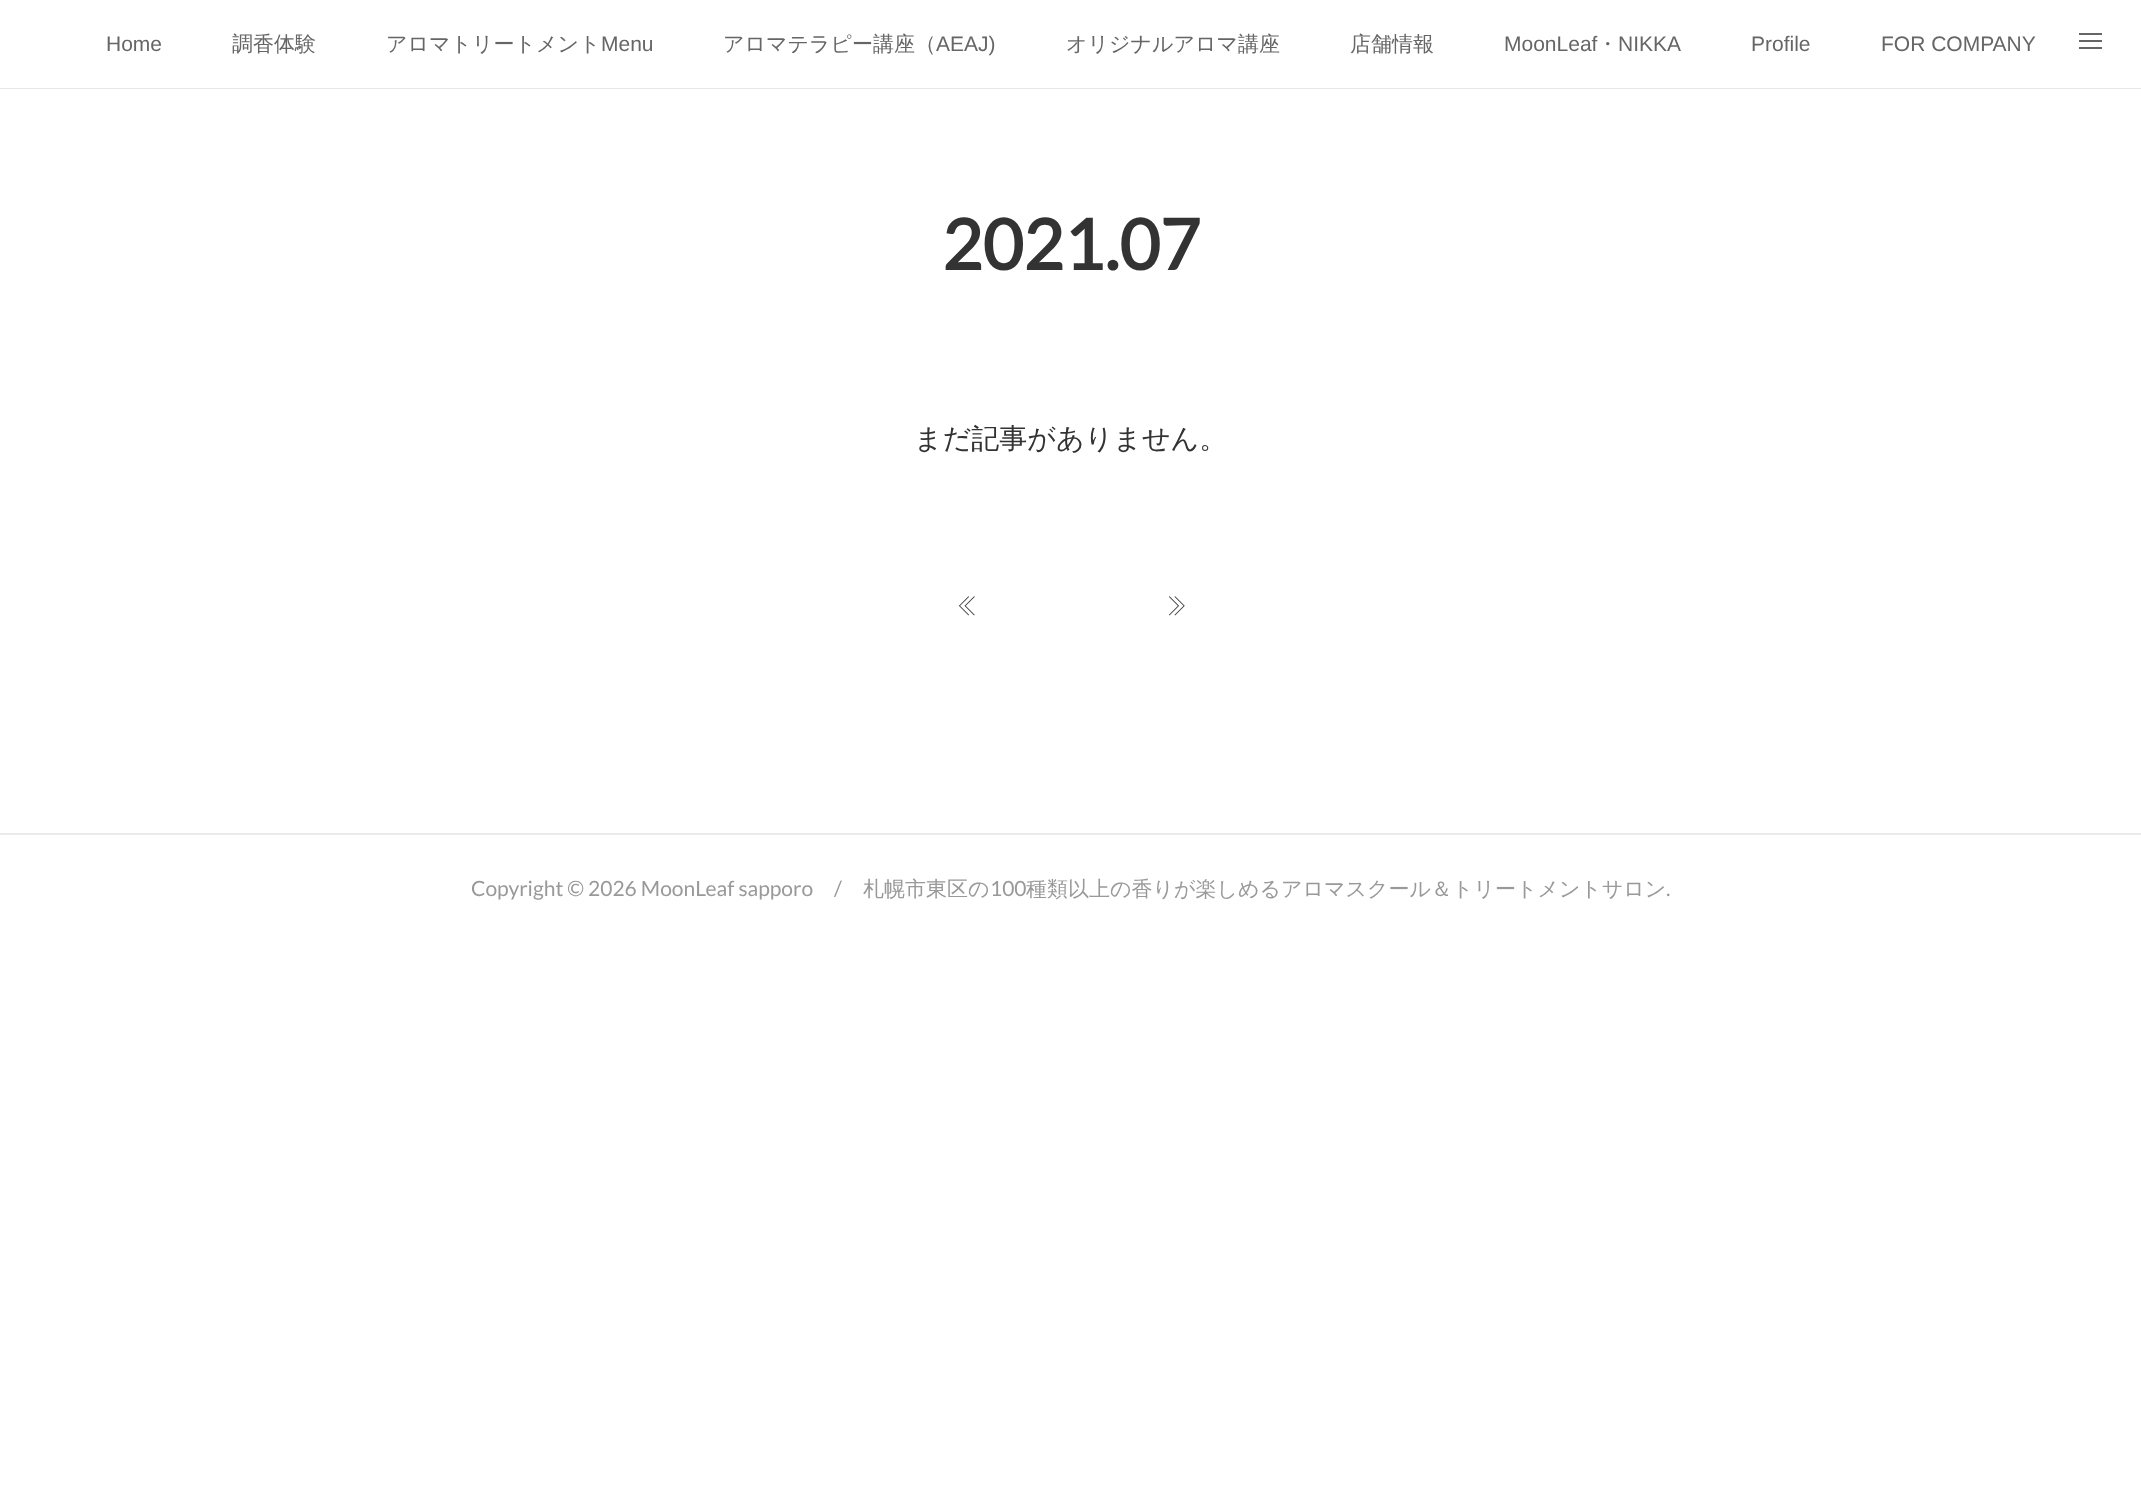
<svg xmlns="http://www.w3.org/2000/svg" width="2141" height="1509">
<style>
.a{font:21px Liberation Sans;fill:#666}
.b{font:500 21px WenQuanYi Zen Hei;fill:#666}
.c{font:bold 70px Lato;fill:#333}
.d{font:500 28px WenQuanYi Zen Hei;fill:#333}
.e{font:21px Lato;fill:#999}
.f{font:500 21px WenQuanYi Zen Hei;fill:#999}
</style>
<rect width="100%" height="100%" fill="#fff"/>
<path fill="#e6e6e6" d="M0 88h2141v1H0z"/>
<path fill="#666" d="M2079 33h23v2H2079z"/>
<path fill="#666" d="M2079 40h23v2H2079z"/>
<path fill="#666" d="M2079 47h23v2H2079z"/>
<image href="1.png" x="959" y="596" width="16" height="20"/>
<image href="2.png" x="1169" y="596" width="16" height="20"/>
<path fill="#ebebeb" d="M0 833h2141v2H0z"/>
<text class="a" x="106" y="51">Home</text>
<text class="b" x="232" y="51">調香体験</text>
<text class="b" x="386" y="51">アロマトリートメント</text>
<text class="a" x="601" y="51">Menu</text>
<text class="b" x="723" y="51">アロマテラピー講座（</text>
<text class="a" x="936" y="51">AEAJ)</text>
<text class="b" x="1066" y="51">オリジナルアロマ講座</text>
<text class="b" x="1350" y="51">店舗情報</text>
<text class="a" x="1504" y="51">MoonLeaf</text>
<text class="b" x="1597" y="51">・</text>
<text class="a" x="1618" y="51">NIKKA</text>
<text class="a" x="1751" y="51">Profile</text>
<text class="a" x="1881" y="51">FOR COMPANY</text>
<text class="c" x="942" y="270">2021.07</text>
<text class="d" x="914" y="448">まだ記事がありません。</text>
<text class="e" x="471" y="896">Copyright © 2026 MoonLeaf sapporo</text>
<text class="e" x="834" y="896">/</text>
<text class="f" x="863" y="896">札幌市東区の</text>
<text class="e" x="990" y="896">100</text>
<text class="f" x="1026" y="896">種類以上の香りが楽しめるアロマスクール＆トリートメントサロン</text>
<text class="e" x="1666" y="896">.</text>
</svg>
